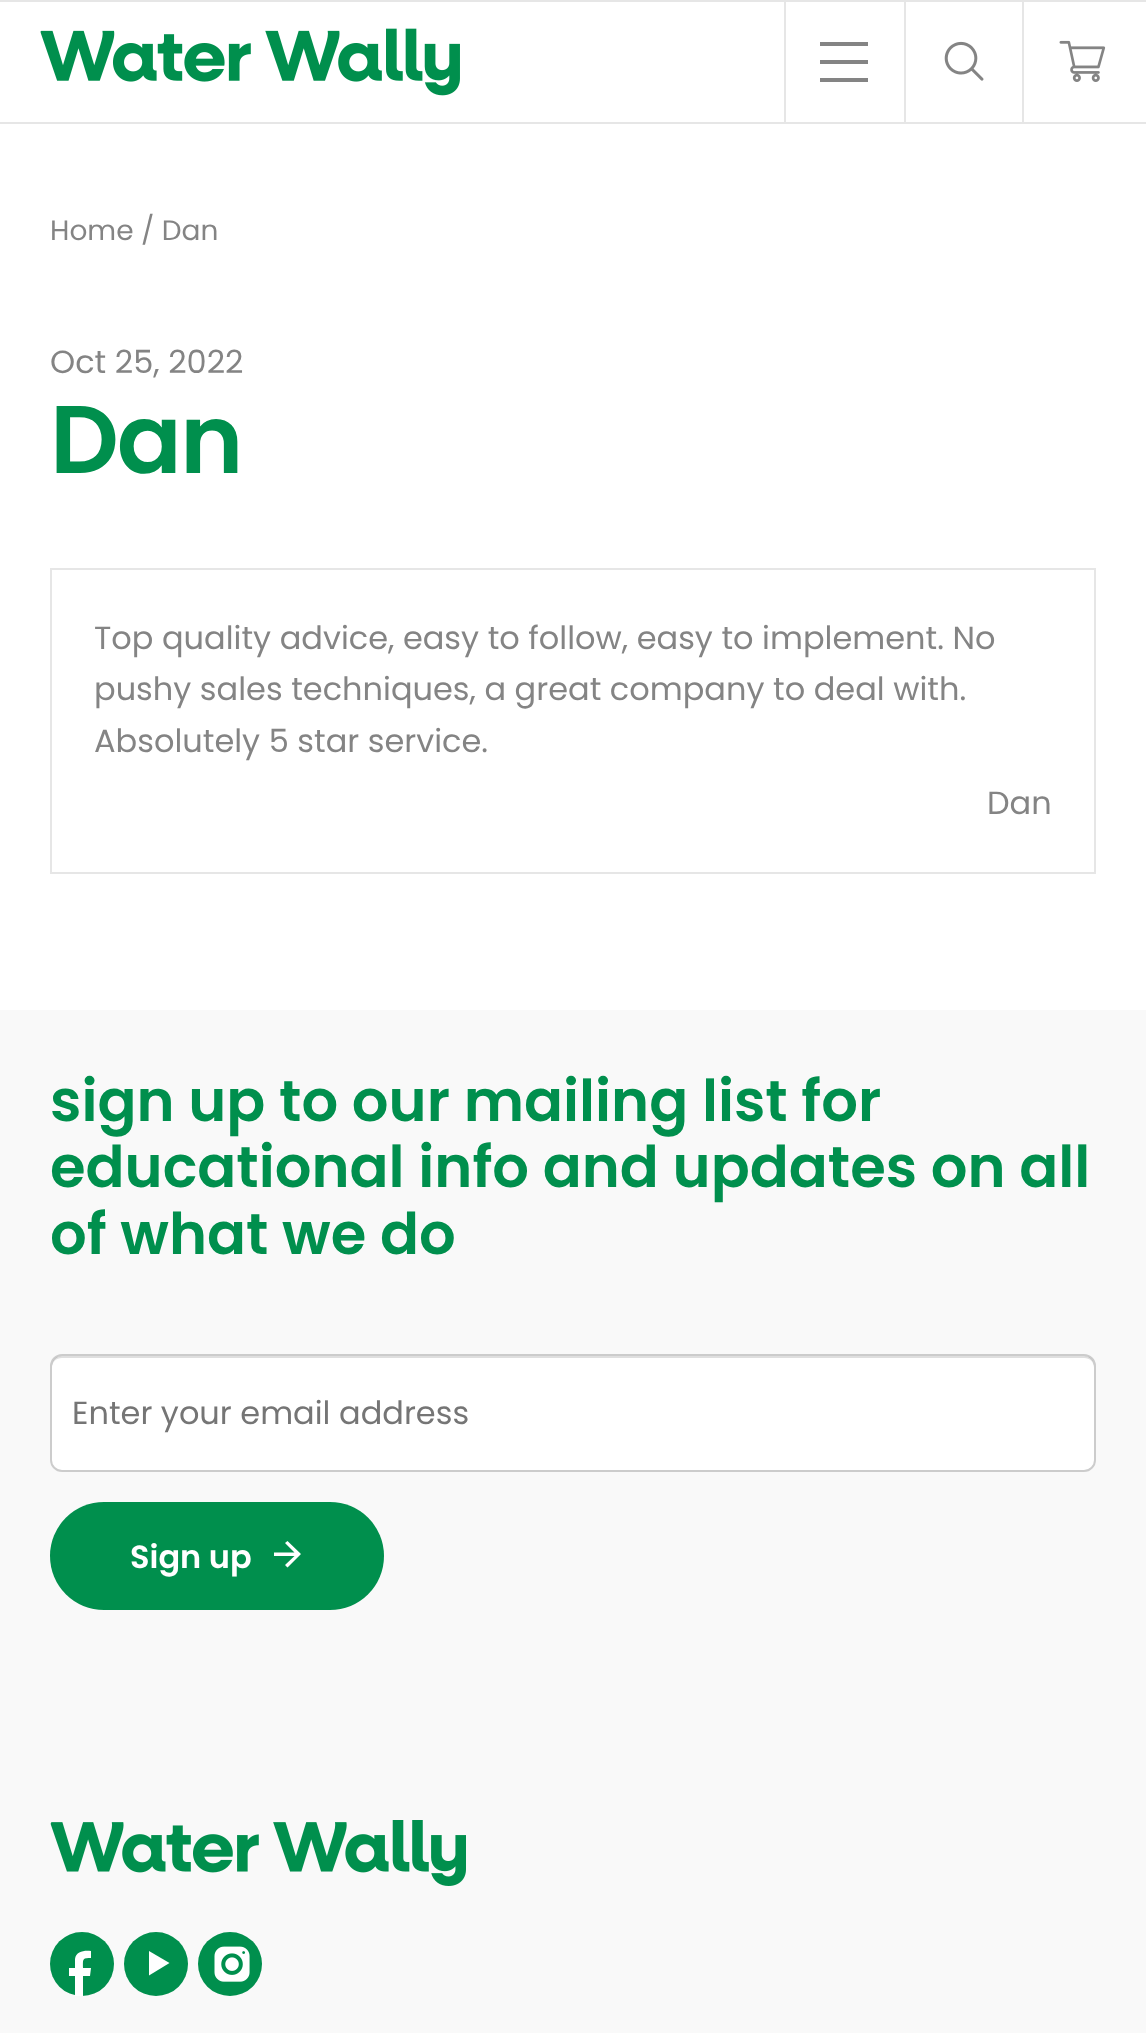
<svg xmlns="http://www.w3.org/2000/svg" width="1146" height="2033">
<style>
.a{font:28px Poppins;fill:#848484}
.b{font:32px Poppins;fill:#848484}
.c{font:600 96px Poppins;letter-spacing:-2px;fill:#008f4d}
.d{font:600 57.6px Poppins;fill:#008f4d}
.e{font:32px Poppins;fill:#757575}
.f{font:600 32px Poppins;fill:#fff}
</style>
<rect width="100%" height="100%" fill="#fff"/>
<path fill="#e6e6e6" d="M0 0h1146v2H0z"/>
<path fill="#e6e6e6" d="M0 122h1146v2H0z"/>
<image href="1.png" x="40" y="28" width="420" height="68"/>
<path fill="#e6e6e6" d="M784 2h2v120H784z"/>
<path fill="#848484" d="M820 42h48v4H820z"/>
<path fill="#848484" d="M820 60h48v4H820z"/>
<path fill="#848484" d="M820 78h48v4H820z"/>
<path fill="#e6e6e6" d="M1022 2h2v120H1022z"/>
<path fill="#e6e6e6" d="M904 2h2v120H904z"/>
<image href="2.png" x="944" y="41" width="40" height="40"/>
<image href="3.png" x="1059" y="40" width="47" height="42"/>
<path fill="none" stroke="#e6e6e6" stroke-width="2" d="M51 569h1044v304H51z"/>
<path fill="#f9f9f9" d="M0 1010h1146v1023H0z"/>
<rect fill="#fff" x="50" y="1354" width="1046" height="118" rx="12"/>
<path fill="#dfdfdf" d="M62 1358h1022c6 0 10 4 10 10v-2c0-6-4-10-10-10h-1022c-6 0-10 4-10 10v2c0-6 4-10 10-10z"/>
<rect fill="none" stroke="#00000033" stroke-width="2" x="51" y="1355" width="1044" height="116" rx="11"/>
<rect fill="#008f4d" x="50" y="1502" width="334" height="108" rx="54"/>
<path fill="#fff" d="M287.5 1567.5l13.5-13.5l-13.5-13l-2.5 2l9.5 9.5h-20.5v3.5h20.5l-9.5 9z"/>
<image href="4.png" x="50" y="1820" width="416" height="66"/>
<circle fill="#008f4d" cx="82" cy="1964" r="32"/>
<path fill="#fff" d="M75 1996v-20h-6v-8h6v-9c1-8 10-9 16-8v7c-9 0-8 1-8 10h8l-1 8h-7v20z"/>
<circle fill="#008f4d" cx="156" cy="1964" r="32"/>
<path fill="#fff" d="M149 1975.5v-24.5l20.5 12z"/>
<circle fill="#008f4d" cx="230" cy="1964" r="32"/>
<image href="5.png" x="214" y="1946" width="36" height="36"/>
<text class="a" x="50" y="240">Home / Dan</text>
<text class="b" x="50" y="373">Oct 25, 2022</text>
<text class="c" x="50" y="473">Dan</text>
<text class="b" x="94" y="649">Top quality advice, easy to follow, easy to implement. No</text>
<text class="b" x="94" y="700">pushy sales techniques, a great company to deal with.</text>
<text class="b" x="94" y="752">Absolutely 5 star service.</text>
<text class="b" x="987" y="814">Dan</text>
<text class="d" x="50" y="1121">sign up to our mailing list for</text>
<text class="d" x="50" y="1187">educational info and updates on all</text>
<text class="d" x="50" y="1254">of what we do</text>
<text class="e" x="72" y="1424">Enter your email address</text>
<text class="f" x="130" y="1568">Sign up</text>
</svg>
